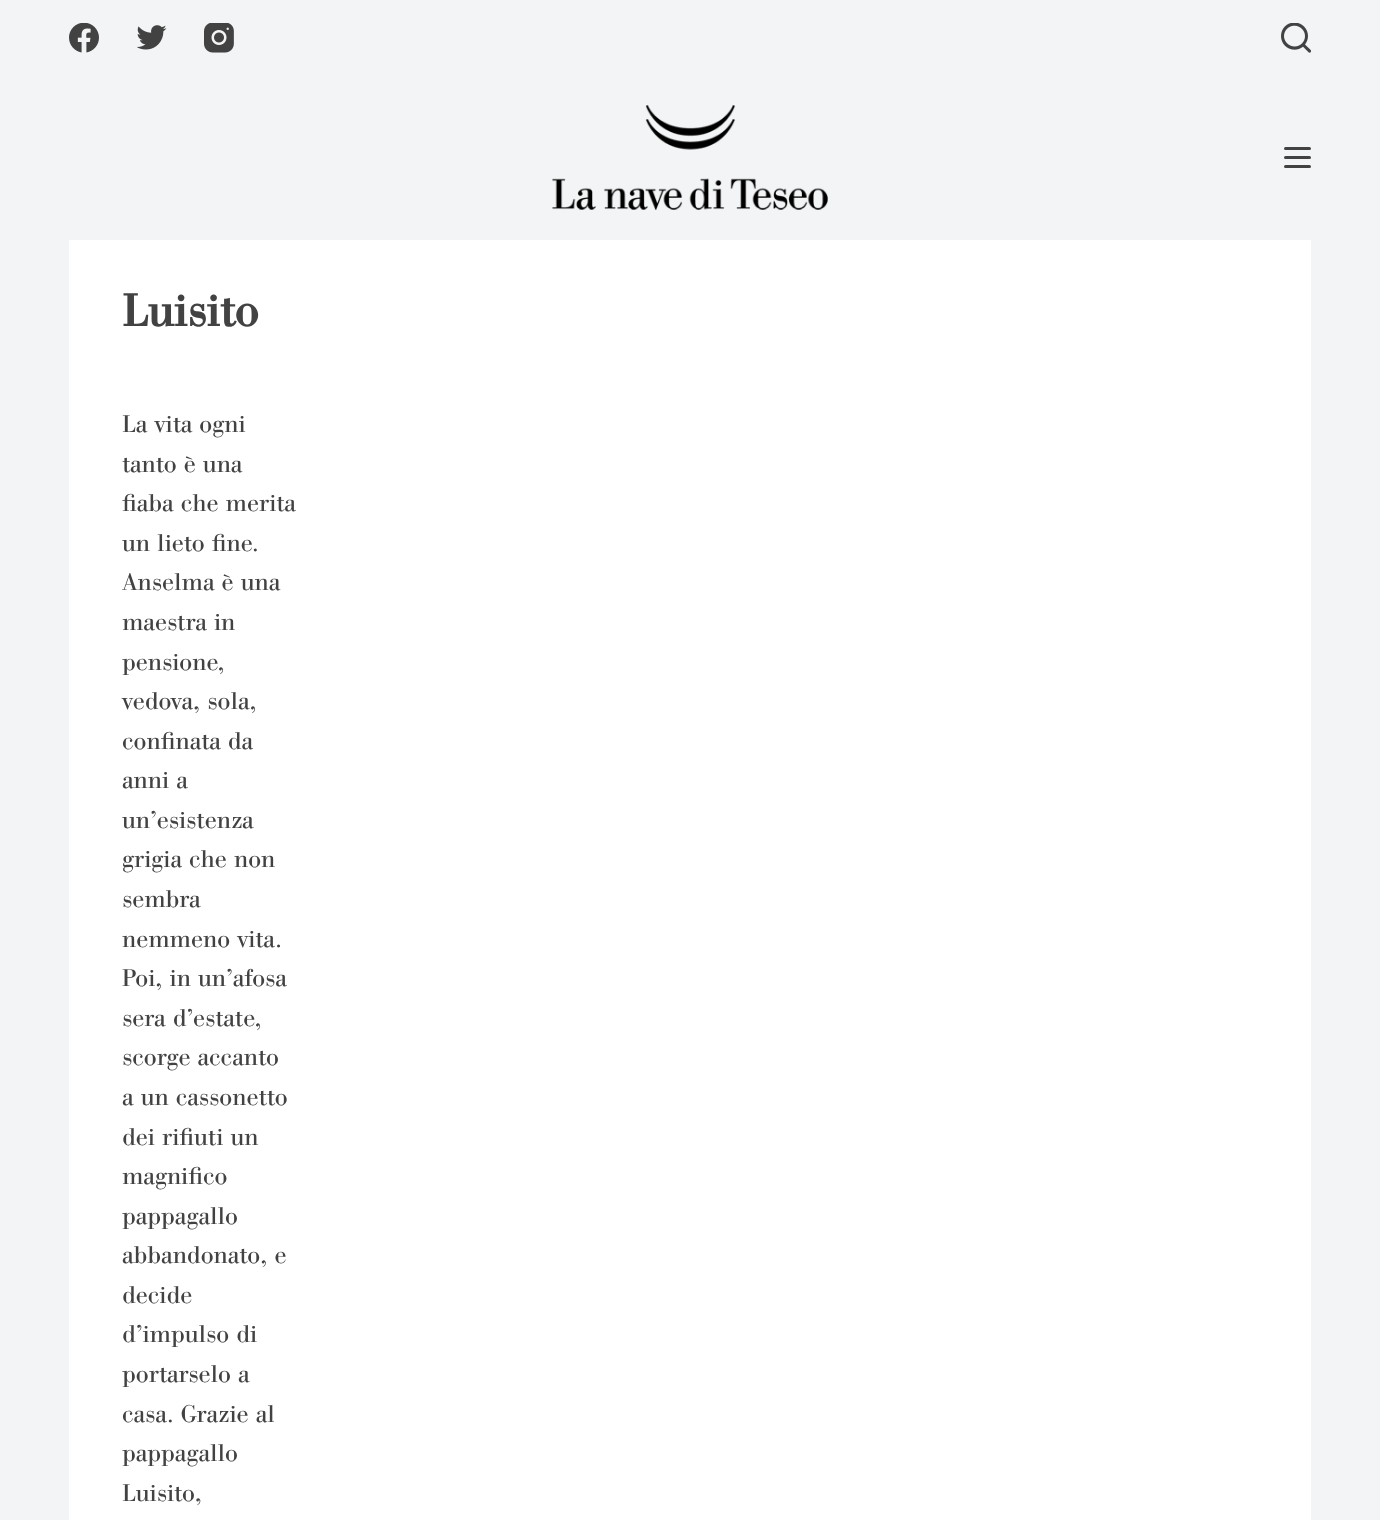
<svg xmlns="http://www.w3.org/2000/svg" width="1380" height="1520">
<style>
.a{font:bold 45px 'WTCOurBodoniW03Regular';fill:#424242}
.b{font:24px 'WTCOurBodoniW03Regular';fill:#424242}
</style>
<rect width="100%" height="100%" fill="#f3f4f5"/>
<image href="1.png" x="69" y="23" width="30" height="30"/>
<image href="2.png" x="137" y="25" width="30" height="25"/>
<image href="3.png" x="204" y="23" width="30" height="30"/>
<image href="4.png" x="1281" y="23" width="30" height="30"/>
<image href="5.png" x="552" y="105" width="276" height="105"/>
<rect fill="#424242" x="1284" y="147" width="27" height="3" rx="1.5"/>
<rect fill="#424242" x="1284" y="156" width="27" height="3" rx="1.5"/>
<rect fill="#424242" x="1284" y="165" width="27" height="3" rx="1.5"/>
<path fill="#fff" d="M69 240h1242v1280H69z"/>
<text class="a" x="122" y="326">Luisito</text>
<text class="b" x="122" y="432">La vita ogni</text>
<text class="b" x="122" y="472">tanto è una</text>
<text class="b" x="122" y="511">fiaba che merita</text>
<text class="b" x="122" y="551">un lieto fine.</text>
<text class="b" x="122" y="590">Anselma è una</text>
<text class="b" x="122" y="630">maestra in</text>
<text class="b" x="122" y="670">pensione,</text>
<text class="b" x="122" y="709">vedova, sola,</text>
<text class="b" x="122" y="749">confinata da</text>
<text class="b" x="122" y="788">anni a</text>
<text class="b" x="122" y="828">un’esistenza</text>
<text class="b" x="122" y="867">grigia che non</text>
<text class="b" x="122" y="907">sembra</text>
<text class="b" x="122" y="947">nemmeno vita.</text>
<text class="b" x="122" y="986">Poi, in un’afosa</text>
<text class="b" x="122" y="1026">sera d’estate,</text>
<text class="b" x="122" y="1065">scorge accanto</text>
<text class="b" x="122" y="1105">a un cassonetto</text>
<text class="b" x="122" y="1145">dei rifiuti un</text>
<text class="b" x="122" y="1184">magnifico</text>
<text class="b" x="122" y="1224">pappagallo</text>
<text class="b" x="122" y="1263">abbandonato, e</text>
<text class="b" x="122" y="1303">decide</text>
<text class="b" x="122" y="1342">d’impulso di</text>
<text class="b" x="122" y="1382">portarselo a</text>
<text class="b" x="122" y="1422">casa. Grazie al</text>
<text class="b" x="122" y="1461">pappagallo</text>
<text class="b" x="122" y="1501">Luisito,</text>
</svg>
